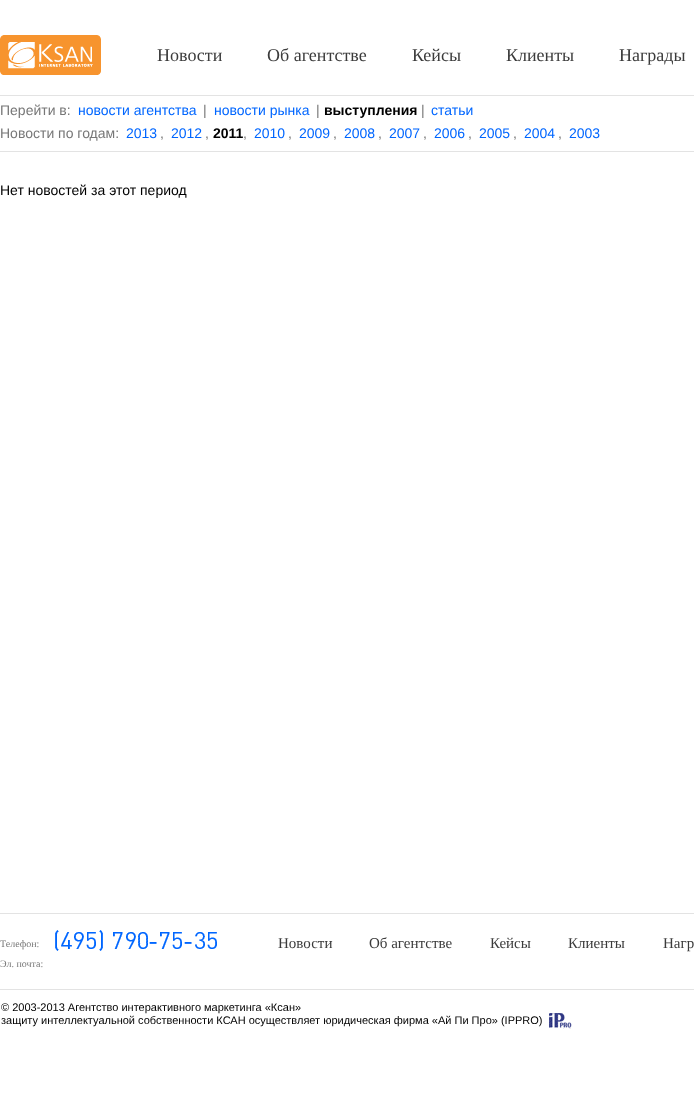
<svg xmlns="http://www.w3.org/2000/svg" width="694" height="1113">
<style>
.a{font:18px Liberation Serif;fill:#3b3b3b}
.b{font:14px Liberation Sans;fill:#777}
.c{font:14px Liberation Sans;fill:#06f}
.d{font:bold 14px Liberation Sans;fill:#000}
.e{font:14px Liberation Sans;fill:#000}
.f{font:10px Liberation Serif;fill:#777}
.g{font:15px Liberation Serif;fill:#3b3b3b}
.h{font:11px Liberation Sans;fill:#000}
</style>
<rect width="100%" height="100%" fill="#fff"/>
<path fill="#e3e3e3" d="M0 95h694v1H0z"/>
<image href="1.png" x="0" y="35" width="101" height="40"/>
<path fill="#e3e3e3" d="M0 151h694v1H0z"/>
<path fill="#e3e3e3" d="M0 913h694v1H0z"/>
<image href="2.png" x="55" y="930" width="162" height="21"/>
<path fill="#e3e3e3" d="M0 989h694v1H0z"/>
<image href="3.png" x="549" y="1013" width="23" height="16"/>
<text class="a" x="157" y="61">Новости</text>
<text class="a" x="267" y="61">Об агентстве</text>
<text class="a" x="412" y="61">Кейсы</text>
<text class="a" x="506" y="61">Клиенты</text>
<text class="a" x="619" y="61">Награды</text>
<text class="b" x="0" y="115">Перейти в:</text>
<text class="c" x="78" y="115">новости агентства</text>
<text class="b" x="203" y="115">|</text>
<text class="c" x="214" y="115">новости рынка</text>
<text class="b" x="316" y="115">|</text>
<text class="d" x="324" y="115">выступления</text>
<text class="b" x="421" y="115">|</text>
<text class="c" x="431" y="115">статьи</text>
<text class="b" x="0" y="138">Новости по годам:</text>
<text class="c" x="126" y="138">2013</text>
<text class="b" x="160" y="138">,</text>
<text class="c" x="171" y="138">2012</text>
<text class="b" x="205" y="138">,</text>
<text class="d" x="213" y="138">2011</text>
<text class="b" x="243" y="138">,</text>
<text class="c" x="254" y="138">2010</text>
<text class="b" x="288" y="138">,</text>
<text class="c" x="299" y="138">2009</text>
<text class="b" x="333" y="138">,</text>
<text class="c" x="344" y="138">2008</text>
<text class="b" x="378" y="138">,</text>
<text class="c" x="389" y="138">2007</text>
<text class="b" x="423" y="138">,</text>
<text class="c" x="434" y="138">2006</text>
<text class="b" x="468" y="138">,</text>
<text class="c" x="479" y="138">2005</text>
<text class="b" x="513" y="138">,</text>
<text class="c" x="524" y="138">2004</text>
<text class="b" x="558" y="138">,</text>
<text class="c" x="569" y="138">2003</text>
<text class="e" x="0" y="195">Нет новостей за этот период</text>
<text class="f" x="0" y="947">Телефон:</text>
<text class="f" x="0" y="967">Эл. почта:</text>
<text class="g" x="278" y="948">Новости</text>
<text class="g" x="369" y="948">Об агентстве</text>
<text class="g" x="490" y="948">Кейсы</text>
<text class="g" x="568" y="948">Клиенты</text>
<text class="g" x="663" y="948">Нагр</text>
<text class="h" x="1" y="1011">© 2003-2013 Агентство интерактивного маркетинга «Ксан»</text>
<text class="h" x="1" y="1024">защиту интеллектуальной собственности КСАН осуществляет юридическая фирма «Ай Пи Про» (IPPRO)</text>
</svg>
